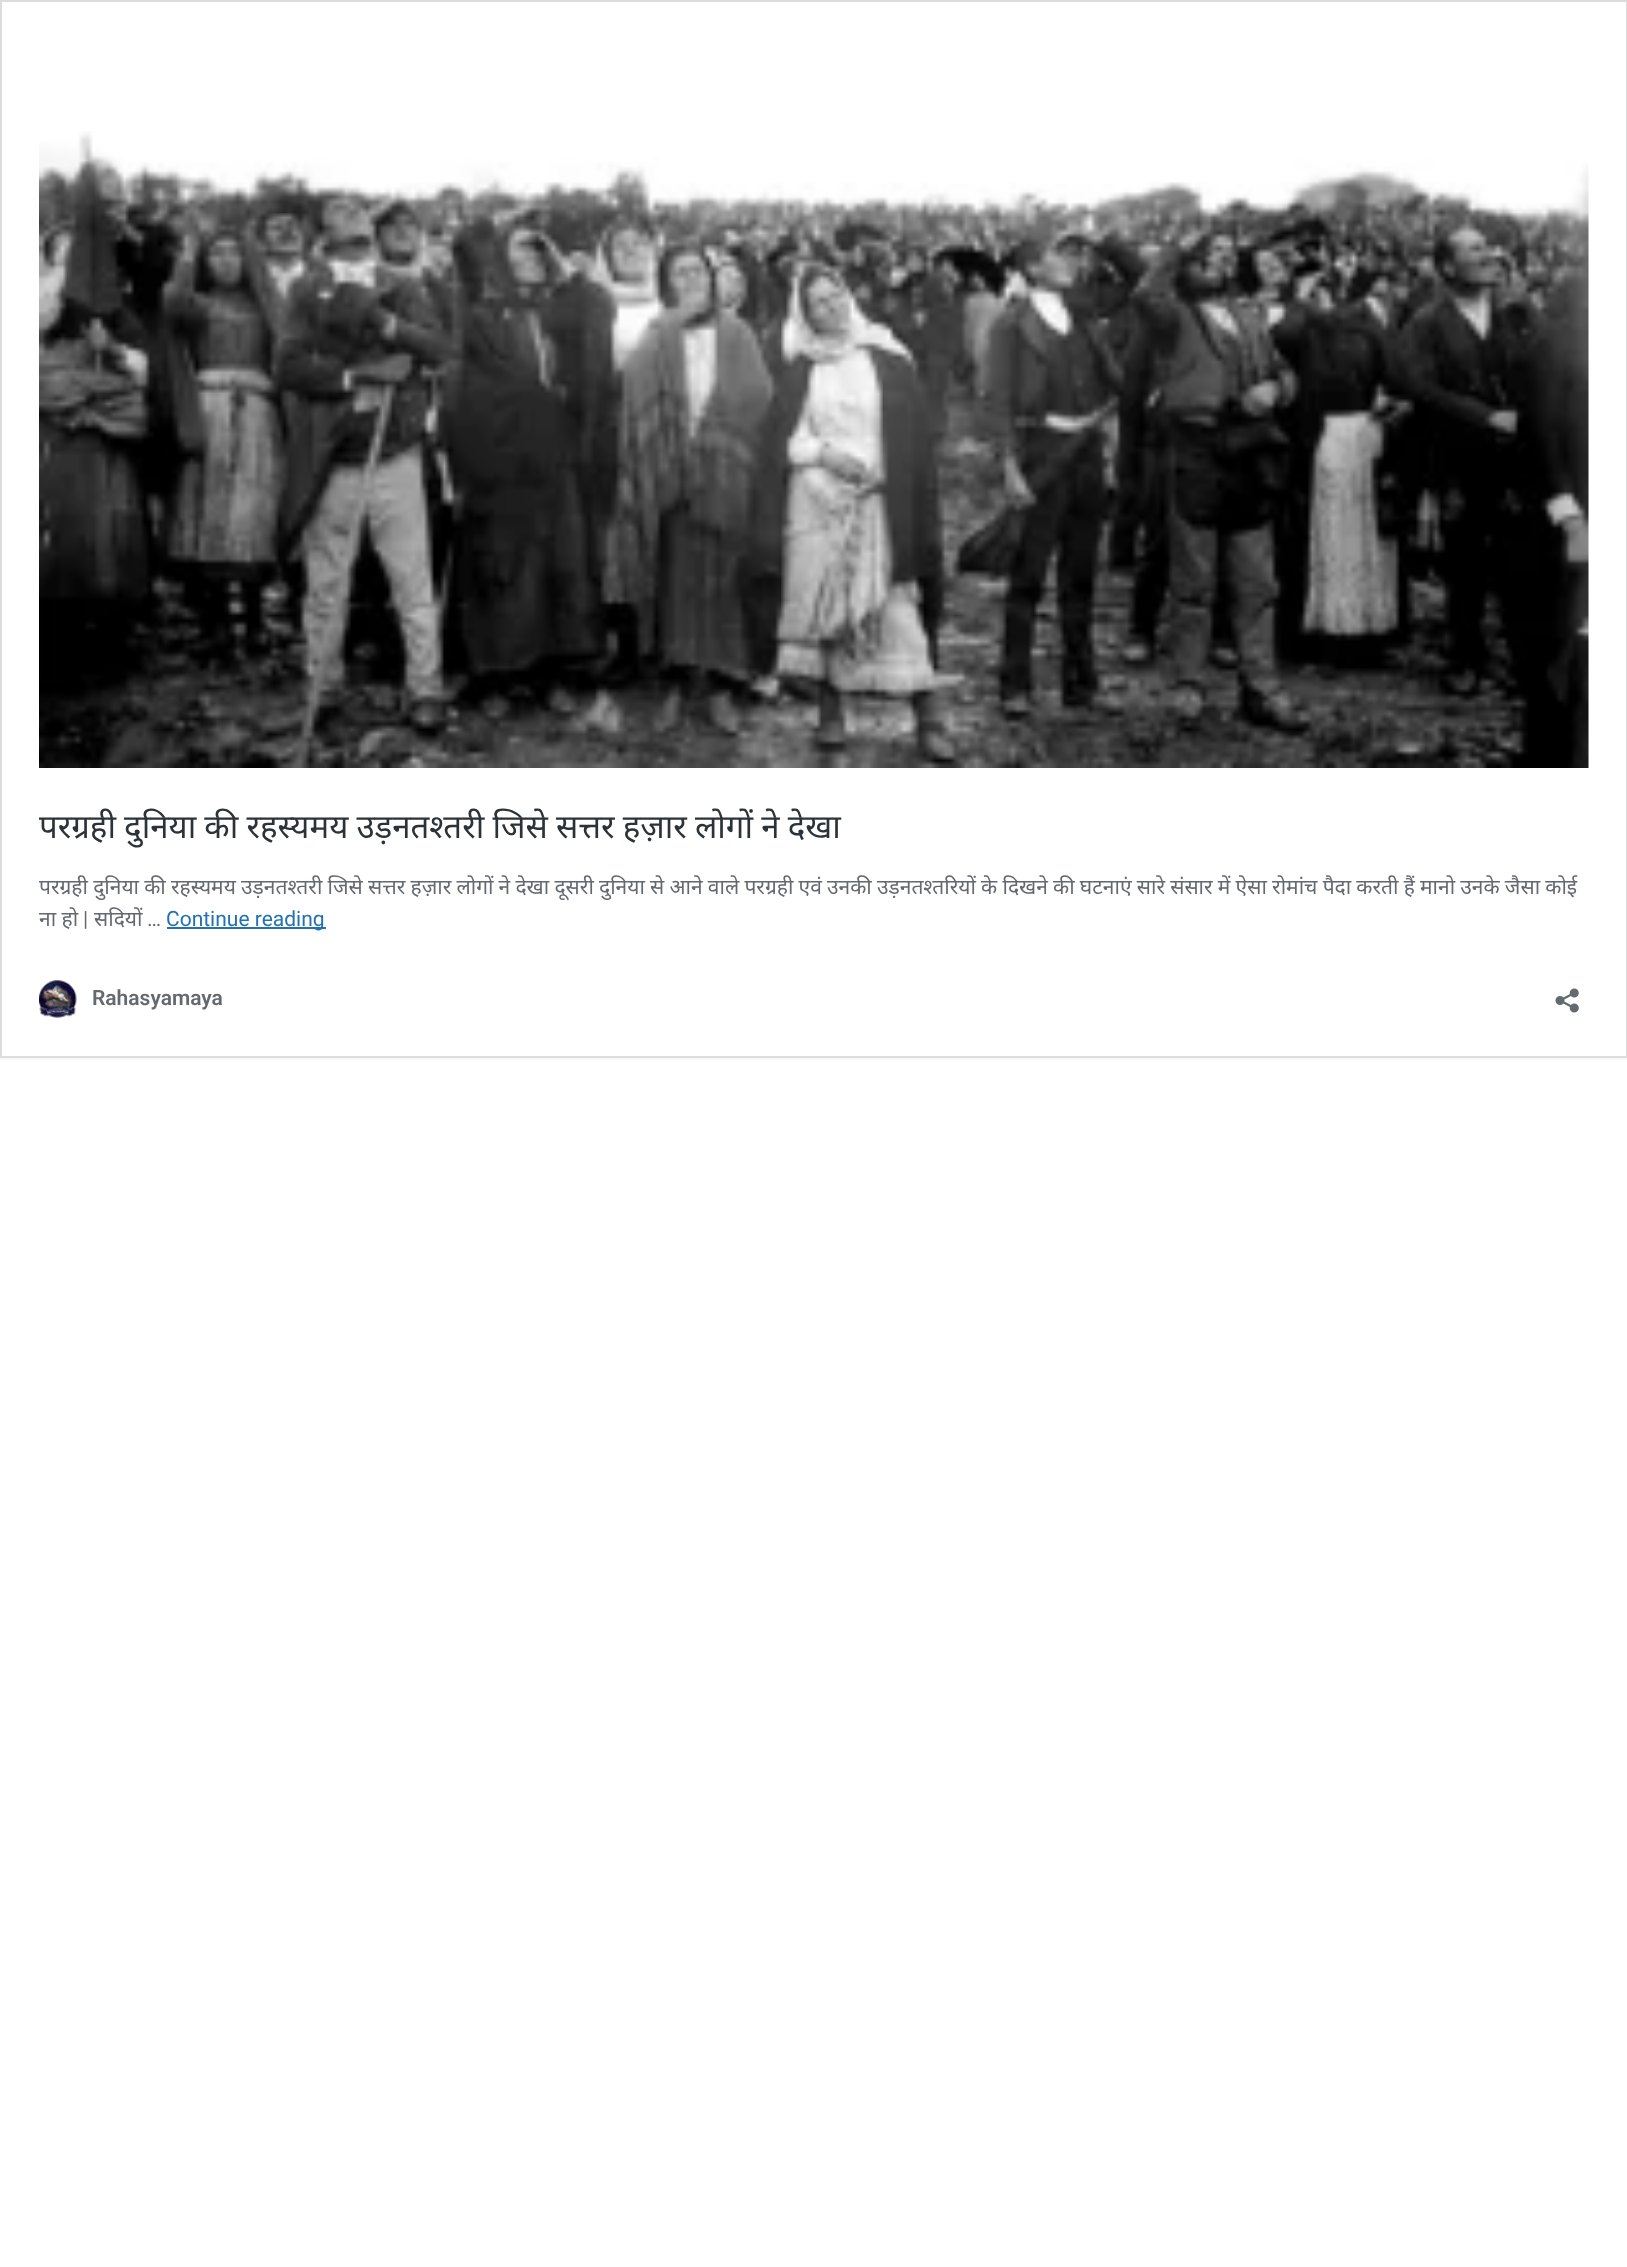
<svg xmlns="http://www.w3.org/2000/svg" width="1627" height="2267">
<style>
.a{font:33px Noto Sans;fill:#2c3338}
.b{font:21px Noto Sans;fill:#646970}
.c{font:21px Roboto;fill:#646970}
.d{font:21px Roboto;fill:#2271b1}
.e{font:600 21px Roboto;fill:#646970}
</style>
<rect width="100%" height="100%" fill="#fff"/>
<path fill="#0000000d" filter="blur(1px)" d="M0 2h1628v1057H0z"/>
<path fill="#fff" stroke="#dcdcde" stroke-width="2" d="M1 1h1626v1056H1z"/>
<image href="1.png" x="39" y="131" width="1550" height="637"/>
<path fill="#2271b1" d="M167 927h159v2H167z"/>
<image href="2.png" x="39" y="980" width="38" height="38"/>
<image href="3.png" x="1555" y="988" width="24" height="25"/>
<text class="a" x="39" y="838" word-spacing="-0.4">परग्रही दुनिया की रहस्यमय उड़नतश्तरी जिसे सत्तर हज़ार लोगों ने देखा</text>
<text class="b" x="39" y="894" word-spacing="-0.25">परग्रही दुनिया की रहस्यमय उड़नतश्तरी जिसे सत्तर हज़ार लोगों ने देखा दूसरी दुनिया से आने वाले परग्रही एवं उनकी उड़नतश्तरियों के दिखने की घटनाएं सारे संसार में ऐसा रोमांच पैदा करती हैं मानो उनके जैसा कोई</text>
<text class="b" x="39" y="926">ना हो</text>
<text class="c" x="83" y="926">|</text>
<text class="b" x="94" y="926">सदियों</text>
<text class="c" x="147" y="926">…</text>
<text class="d" x="166" y="926">Continue reading</text>
<text class="e" x="92" y="1005">Rahasyamaya</text>
</svg>
